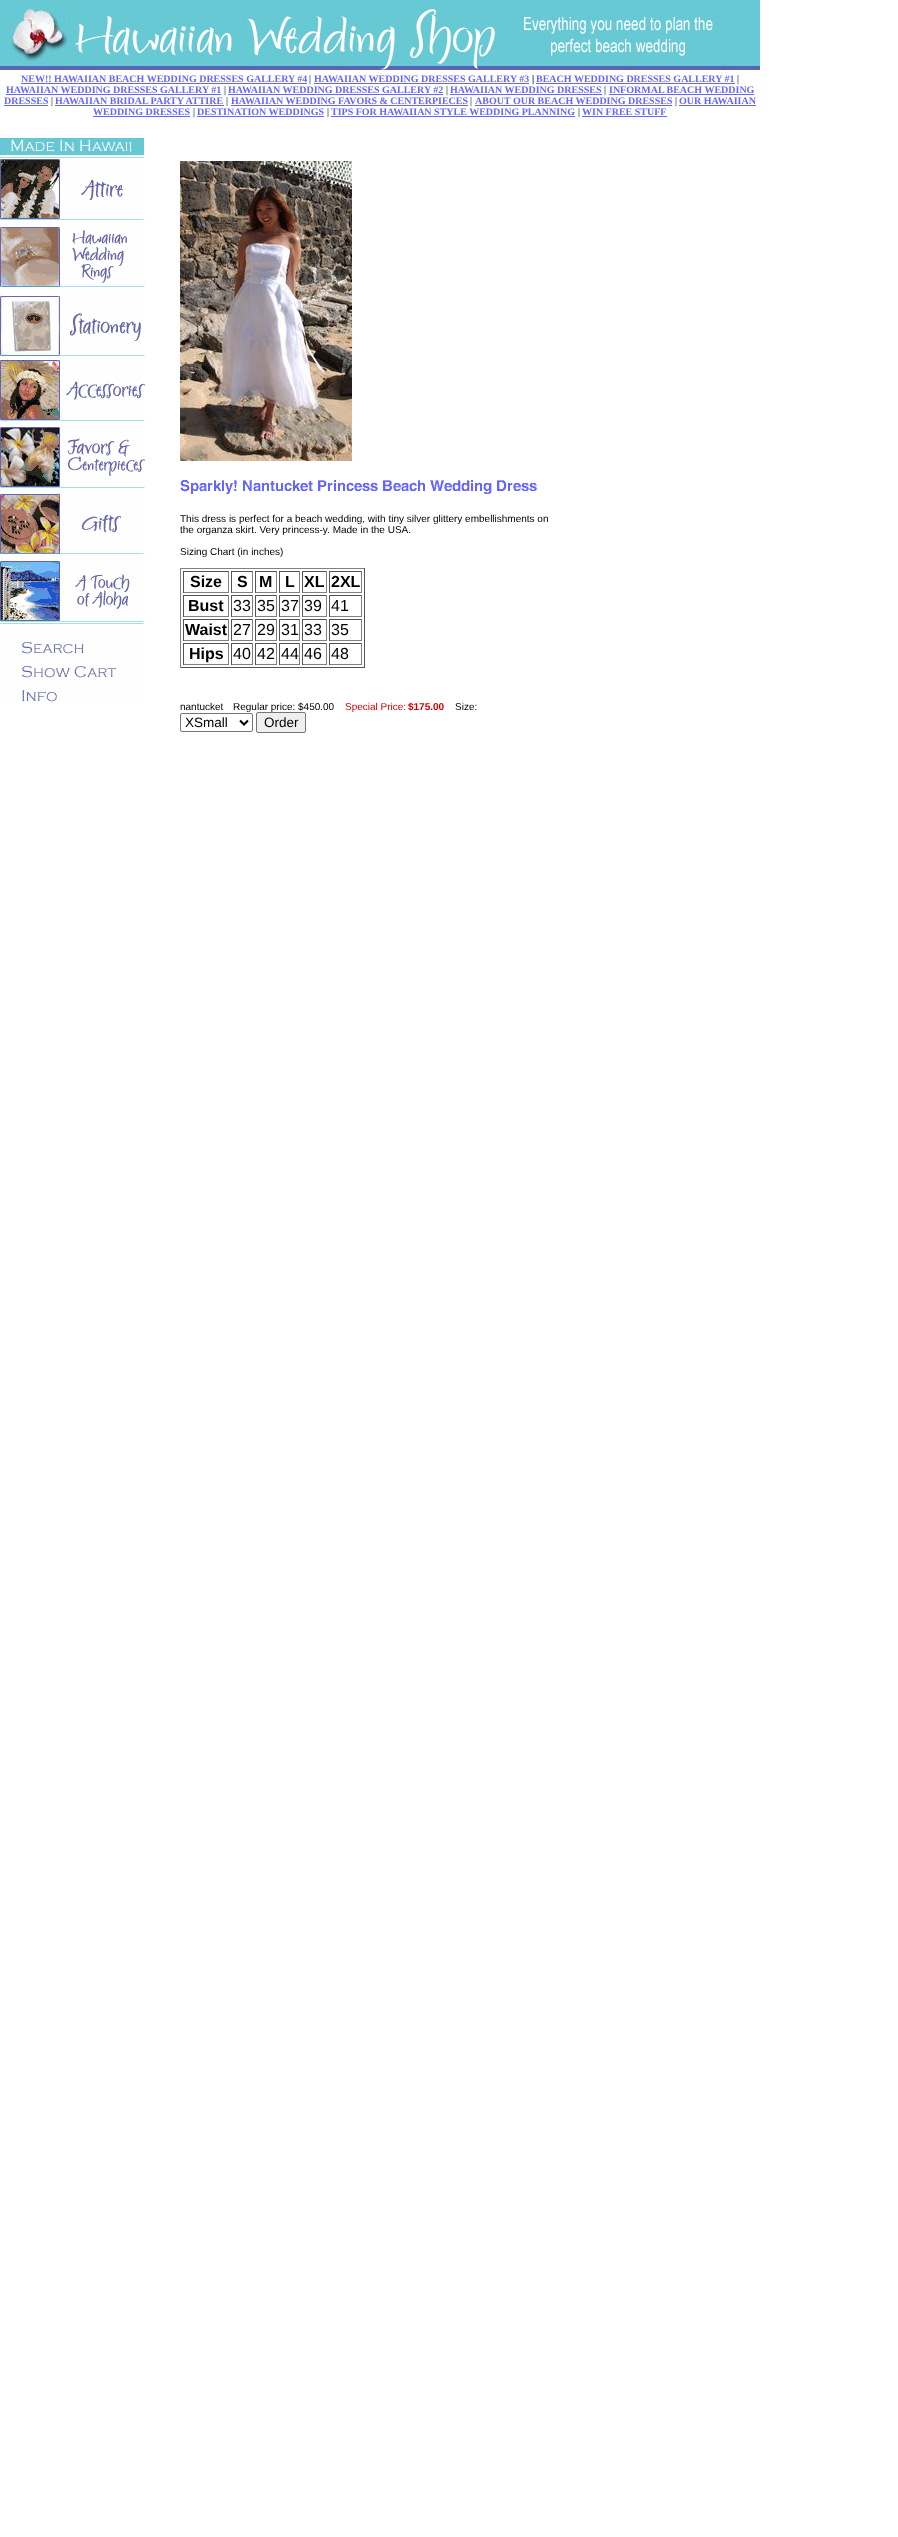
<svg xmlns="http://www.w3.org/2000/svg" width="898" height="2537">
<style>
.a{font:bold 10px Liberation Serif;fill:#66f}
.b{font:10px Liberation Serif;fill:#000}
.c{font:bold 10px Liberation Serif;fill:#000}
.d{font:10px Liberation Sans;fill:#000}
.e{font:bold 16px Liberation Sans;fill:#000}
.f{font:16px Liberation Sans;fill:#000}
.g{font:10px Liberation Sans;fill:#c00}
.h{font:bold 10px Liberation Sans;fill:#c00}
.i{font:13.5px Liberation Sans;fill:#000}
</style>
<rect width="100%" height="100%" fill="#fff"/>
<image href="1.png" x="0" y="0" width="760" height="70"/>
<path fill="#66f" d="M21 83h286v1H21z"/>
<path fill="#66f" d="M314 83h215v1H314z"/>
<path fill="#66f" d="M536 83h199v1H536z"/>
<path fill="#66f" d="M6 94h215v1H6z"/>
<path fill="#66f" d="M228 94h215v1H228z"/>
<path fill="#66f" d="M450 94h152v1H450z"/>
<path fill="#66f" d="M609 94h145v1H609z"/>
<path fill="#66f" d="M4 105h44v1H4z"/>
<path fill="#66f" d="M55 105h169v1H55z"/>
<path fill="#66f" d="M231 105h237v1H231z"/>
<path fill="#66f" d="M475 105h197v1H475z"/>
<path fill="#66f" d="M679 105h77v1H679z"/>
<path fill="#66f" d="M93 116h97v1H93z"/>
<path fill="#66f" d="M197 116h127v1H197z"/>
<path fill="#66f" d="M331 116h244v1H331z"/>
<path fill="#66f" d="M582 116h85v1H582z"/>
<image href="2.png" x="0" y="138" width="145" height="564"/>
<image href="3.png" x="180" y="161" width="172" height="300"/>
<image href="4.png" x="180" y="480" width="357" height="14"/>
<path fill="#808080" d="M180 568h185v1H180z"/>
<path fill="#555" d="M364 568h1v100H364z"/>
<path fill="#555" d="M180 667h185v1H180z"/>
<path fill="#808080" d="M180 568h1v100H180z"/>
<path fill="#555" d="M183 571h46v1H183z"/>
<path fill="#808080" d="M228 571h1v22H228z"/>
<path fill="#808080" d="M183 592h46v1H183z"/>
<path fill="#555" d="M183 571h1v22H183z"/>
<path fill="#555" d="M231 571h22v1H231z"/>
<path fill="#808080" d="M252 571h1v22H252z"/>
<path fill="#808080" d="M231 592h22v1H231z"/>
<path fill="#555" d="M231 571h1v22H231z"/>
<path fill="#555" d="M255 571h22v1H255z"/>
<path fill="#808080" d="M276 571h1v22H276z"/>
<path fill="#808080" d="M255 592h22v1H255z"/>
<path fill="#555" d="M255 571h1v22H255z"/>
<path fill="#555" d="M279 571h21v1H279z"/>
<path fill="#808080" d="M299 571h1v22H299z"/>
<path fill="#808080" d="M279 592h21v1H279z"/>
<path fill="#555" d="M279 571h1v22H279z"/>
<path fill="#555" d="M302 571h25v1H302z"/>
<path fill="#808080" d="M326 571h1v22H326z"/>
<path fill="#808080" d="M302 592h25v1H302z"/>
<path fill="#555" d="M302 571h1v22H302z"/>
<path fill="#555" d="M329 571h33v1H329z"/>
<path fill="#808080" d="M361 571h1v22H361z"/>
<path fill="#808080" d="M329 592h33v1H329z"/>
<path fill="#555" d="M329 571h1v22H329z"/>
<path fill="#555" d="M183 595h46v1H183z"/>
<path fill="#808080" d="M228 595h1v22H228z"/>
<path fill="#808080" d="M183 616h46v1H183z"/>
<path fill="#555" d="M183 595h1v22H183z"/>
<path fill="#555" d="M231 595h22v1H231z"/>
<path fill="#808080" d="M252 595h1v22H252z"/>
<path fill="#808080" d="M231 616h22v1H231z"/>
<path fill="#555" d="M231 595h1v22H231z"/>
<path fill="#555" d="M255 595h22v1H255z"/>
<path fill="#808080" d="M276 595h1v22H276z"/>
<path fill="#808080" d="M255 616h22v1H255z"/>
<path fill="#555" d="M255 595h1v22H255z"/>
<path fill="#555" d="M279 595h21v1H279z"/>
<path fill="#808080" d="M299 595h1v22H299z"/>
<path fill="#808080" d="M279 616h21v1H279z"/>
<path fill="#555" d="M279 595h1v22H279z"/>
<path fill="#555" d="M302 595h25v1H302z"/>
<path fill="#808080" d="M326 595h1v22H326z"/>
<path fill="#808080" d="M302 616h25v1H302z"/>
<path fill="#555" d="M302 595h1v22H302z"/>
<path fill="#555" d="M329 595h33v1H329z"/>
<path fill="#808080" d="M361 595h1v22H361z"/>
<path fill="#808080" d="M329 616h33v1H329z"/>
<path fill="#555" d="M329 595h1v22H329z"/>
<path fill="#555" d="M183 619h46v1H183z"/>
<path fill="#808080" d="M228 619h1v22H228z"/>
<path fill="#808080" d="M183 640h46v1H183z"/>
<path fill="#555" d="M183 619h1v22H183z"/>
<path fill="#555" d="M231 619h22v1H231z"/>
<path fill="#808080" d="M252 619h1v22H252z"/>
<path fill="#808080" d="M231 640h22v1H231z"/>
<path fill="#555" d="M231 619h1v22H231z"/>
<path fill="#555" d="M255 619h22v1H255z"/>
<path fill="#808080" d="M276 619h1v22H276z"/>
<path fill="#808080" d="M255 640h22v1H255z"/>
<path fill="#555" d="M255 619h1v22H255z"/>
<path fill="#555" d="M279 619h21v1H279z"/>
<path fill="#808080" d="M299 619h1v22H299z"/>
<path fill="#808080" d="M279 640h21v1H279z"/>
<path fill="#555" d="M279 619h1v22H279z"/>
<path fill="#555" d="M302 619h25v1H302z"/>
<path fill="#808080" d="M326 619h1v22H326z"/>
<path fill="#808080" d="M302 640h25v1H302z"/>
<path fill="#555" d="M302 619h1v22H302z"/>
<path fill="#555" d="M329 619h33v1H329z"/>
<path fill="#808080" d="M361 619h1v22H361z"/>
<path fill="#808080" d="M329 640h33v1H329z"/>
<path fill="#555" d="M329 619h1v22H329z"/>
<path fill="#555" d="M183 643h46v1H183z"/>
<path fill="#808080" d="M228 643h1v22H228z"/>
<path fill="#808080" d="M183 664h46v1H183z"/>
<path fill="#555" d="M183 643h1v22H183z"/>
<path fill="#555" d="M231 643h22v1H231z"/>
<path fill="#808080" d="M252 643h1v22H252z"/>
<path fill="#808080" d="M231 664h22v1H231z"/>
<path fill="#555" d="M231 643h1v22H231z"/>
<path fill="#555" d="M255 643h22v1H255z"/>
<path fill="#808080" d="M276 643h1v22H276z"/>
<path fill="#808080" d="M255 664h22v1H255z"/>
<path fill="#555" d="M255 643h1v22H255z"/>
<path fill="#555" d="M279 643h21v1H279z"/>
<path fill="#808080" d="M299 643h1v22H299z"/>
<path fill="#808080" d="M279 664h21v1H279z"/>
<path fill="#555" d="M279 643h1v22H279z"/>
<path fill="#555" d="M302 643h25v1H302z"/>
<path fill="#808080" d="M326 643h1v22H326z"/>
<path fill="#808080" d="M302 664h25v1H302z"/>
<path fill="#555" d="M302 643h1v22H302z"/>
<path fill="#555" d="M329 643h33v1H329z"/>
<path fill="#808080" d="M361 643h1v22H361z"/>
<path fill="#808080" d="M329 664h33v1H329z"/>
<path fill="#555" d="M329 643h1v22H329z"/>
<rect fill="none" stroke="#767676" x="180.5" y="713.5" width="72" height="18" rx="1.5"/>
<path fill="none" stroke="#000" stroke-width="2" d="M240 720.5l4 4l4-4"/>
<text class="a" x="21" y="82">NEW!! HAWAIIAN BEACH WEDDING DRESSES GALLERY #4</text>
<text class="b" x="309" y="82">|</text>
<text class="a" x="314" y="82">HAWAIIAN WEDDING DRESSES GALLERY #3</text>
<text class="c" x="532" y="82">|</text>
<text class="a" x="536" y="82">BEACH WEDDING DRESSES GALLERY #1</text>
<text class="b" x="737" y="82">|</text>
<text class="a" x="6" y="93">HAWAIIAN WEDDING DRESSES GALLERY #1</text>
<text class="b" x="224" y="93">|</text>
<text class="a" x="228" y="93">HAWAIIAN WEDDING DRESSES GALLERY #2</text>
<text class="b" x="446" y="93">|</text>
<text class="a" x="450" y="93">HAWAIIAN WEDDING DRESSES</text>
<text class="b" x="604" y="93">|</text>
<text class="a" x="609" y="93">INFORMAL BEACH WEDDING</text>
<text class="a" x="4" y="104">DRESSES</text>
<text class="b" x="51" y="104">|</text>
<text class="a" x="55" y="104">HAWAIIAN BRIDAL PARTY ATTIRE</text>
<text class="b" x="226" y="104">|</text>
<text class="a" x="231" y="104">HAWAIIAN WEDDING FAVORS &amp; CENTERPIECES</text>
<text class="b" x="470" y="104">|</text>
<text class="a" x="475" y="104">ABOUT OUR BEACH WEDDING DRESSES</text>
<text class="b" x="675" y="104">|</text>
<text class="a" x="679" y="104">OUR HAWAIIAN</text>
<text class="a" x="93" y="115">WEDDING DRESSES</text>
<text class="b" x="193" y="115">|</text>
<text class="a" x="197" y="115">DESTINATION WEDDINGS</text>
<text class="b" x="327" y="115">|</text>
<text class="a" x="331" y="115">TIPS FOR HAWAIIAN STYLE WEDDING PLANNING</text>
<text class="b" x="578" y="115">|</text>
<text class="a" x="582" y="115">WIN FREE STUFF</text>
<text class="d" x="180" y="522">This dress is perfect for a beach wedding, with tiny silver glittery embellishments on</text>
<text class="d" x="180" y="533">the organza skirt. Very princess-y. Made in the USA.</text>
<text class="d" x="180" y="555">Sizing Chart (in inches)</text>
<text class="e" x="190" y="587">Size</text>
<text class="e" x="237" y="587">S</text>
<text class="e" x="259" y="587">M</text>
<text class="e" x="285" y="587">L</text>
<text class="e" x="304" y="587">XL</text>
<text class="e" x="331" y="587">2XL</text>
<text class="e" x="188" y="611">Bust</text>
<text class="f" x="233" y="611">33</text>
<text class="f" x="257" y="611">35</text>
<text class="f" x="281" y="611">37</text>
<text class="f" x="304" y="611">39</text>
<text class="f" x="331" y="611">41</text>
<text class="e" x="185" y="635">Waist</text>
<text class="f" x="233" y="635">27</text>
<text class="f" x="257" y="635">29</text>
<text class="f" x="281" y="635">31</text>
<text class="f" x="304" y="635">33</text>
<text class="f" x="331" y="635">35</text>
<text class="e" x="189" y="659">Hips</text>
<text class="f" x="233" y="659">40</text>
<text class="f" x="257" y="659">42</text>
<text class="f" x="281" y="659">44</text>
<text class="f" x="304" y="659">46</text>
<text class="f" x="331" y="659">48</text>
<text class="d" x="180" y="710">nantucket</text>
<text class="d" x="233" y="710">Regular price: $450.00</text>
<text class="g" x="345" y="710">Special Price:</text>
<text class="h" x="408" y="710">$175.00</text>
<text class="d" x="455" y="710">Size:</text>
<text class="i" x="185" y="727">XSmall</text>
<rect fill="#efefef" stroke="#767676" x="256.5" y="712.5" width="49" height="20" rx="1.5"/>
<text class="i" x="264" y="727">Order</text>
</svg>
